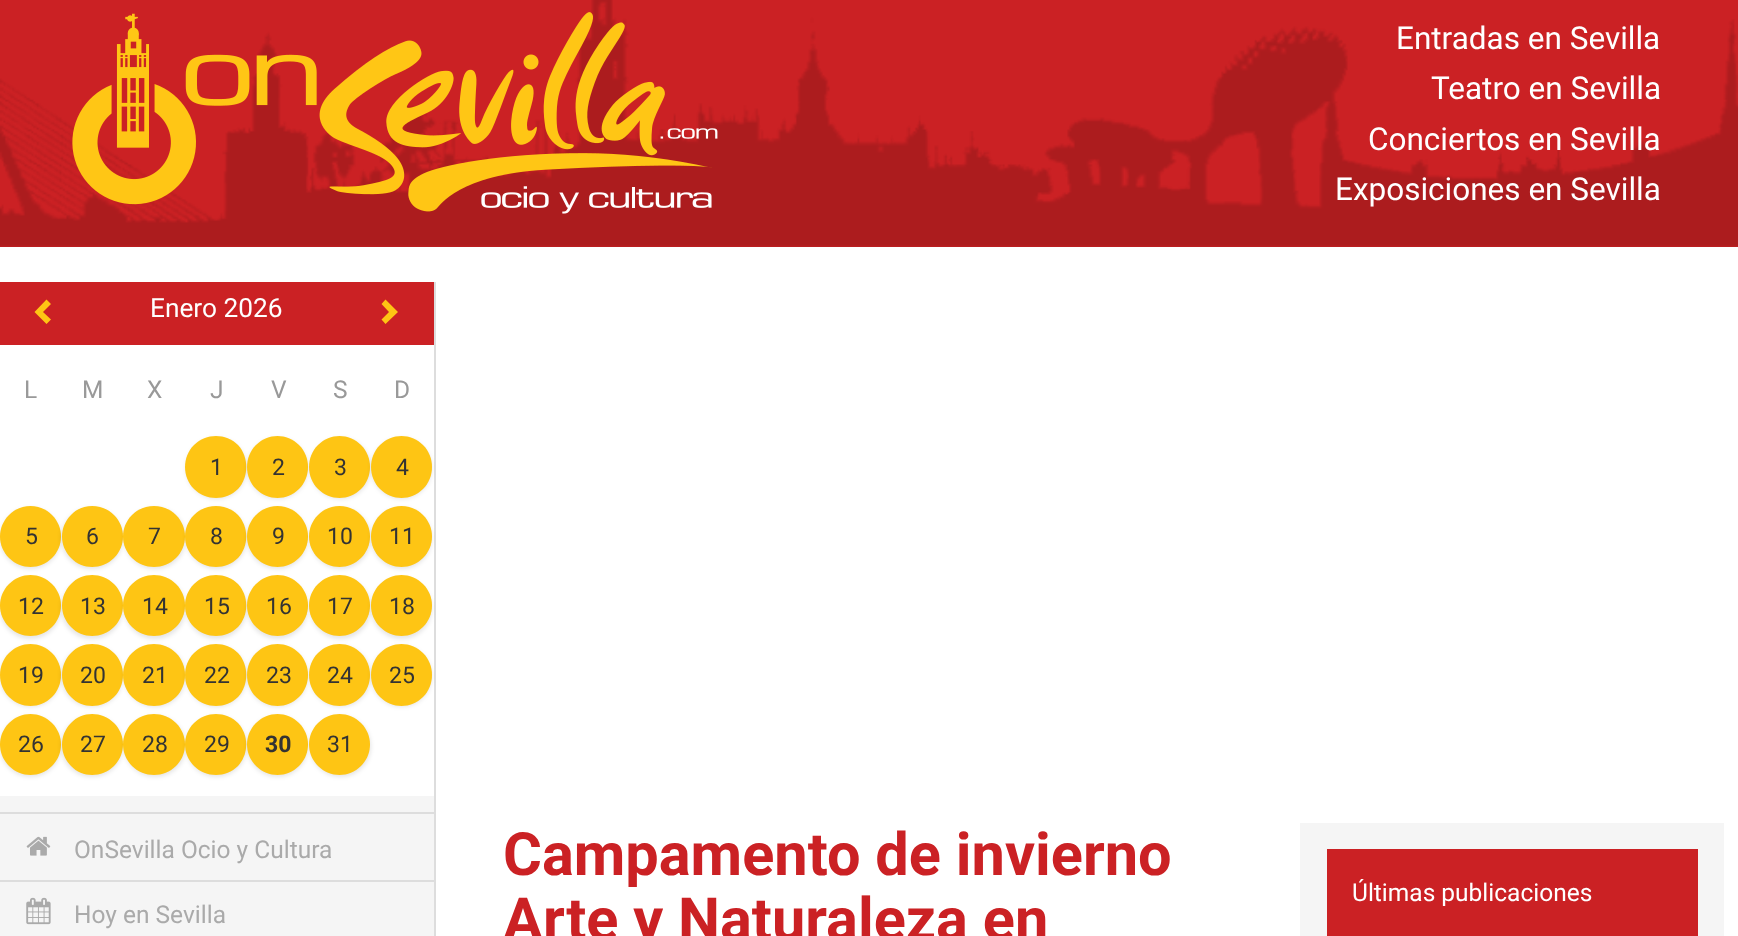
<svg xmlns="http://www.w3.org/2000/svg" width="1738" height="936">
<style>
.a{font:31.5px Roboto;fill:#fff}
.b{font:26.25px Roboto;fill:#fff}
.c{font:24.5px Roboto;fill:#999}
.d{font:23px Roboto;fill:#333}
.e{font:bold 23px Roboto;fill:#333}
.f{font:24.5px Roboto;fill:#aaa}
.g{font:bold 59.5px Roboto;fill:#cb2124}
.h{font:24.5px Roboto;fill:#fff}
</style>
<rect width="100%" height="100%" fill="#fff"/>
<path fill="#cb2124" d="M0 0h1738v247H0z"/>
<image href="1.png" x="0" y="0" width="1738" height="247"/>
<image href="2.png" x="72" y="12" width="646" height="202"/>
<path fill="#f5f5f5" d="M0 796h434v140H0z"/>
<path fill="#ddd" d="M434 282h2v654H434z"/>
<path fill="#cb2124" d="M0 282h434v63H0z"/>
<path fill="#fec514" d="M51 304l-8 8l8 7.5l-4.5 4.5l-12-12l12-12.5z"/>
<path fill="#fec514" d="M398 312l-12.5 12l-4-4.5l7.5-7.5l-7.5-8l4-4.5z"/>
<rect fill="#0000001a" filter="blur(2px)" x="186" y="438" width="61" height="61" rx="30.5"/>
<path fill="#fec514" d="M238 445c11 12 11 32 0 44c-12 12-32 12-44 0c-12-12-12-32 0-44c12-12 32-12 44 0z"/>
<rect fill="#0000001a" filter="blur(2px)" x="247" y="438" width="61" height="61" rx="30.5"/>
<path fill="#fec514" d="M299 445c12 12 12 32 0 44c-12 12-31 12-43 0c-12-12-12-32 0-44c12-12 31-12 43 0z"/>
<rect fill="#0000001a" filter="blur(2px)" x="310" y="438" width="61" height="61" rx="30.5"/>
<path fill="#fec514" d="M361 445c12 12 12 32 0 44c-12 12-31 12-43 0c-12-12-12-32 0-44c12-12 31-12 43 0z"/>
<rect fill="#0000001a" filter="blur(2px)" x="371" y="438" width="61" height="61" rx="30.5"/>
<path fill="#fec514" d="M423 445c12 12 12 32 0 44c-12 12-31 12-43 0c-12-12-12-32 0-44c12-12 31-12 43 0z"/>
<rect fill="#0000001a" filter="blur(2px)" y="508" width="61" height="61" rx="30.5"/>
<path fill="#fec514" d="M52 515c12 12 12 31 0 43c-12 12-31 12-43 0c-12-12-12-31 0-43c12-12 31-12 43 0z"/>
<rect fill="#0000001a" filter="blur(2px)" x="61" y="508" width="62" height="61" rx="30.5"/>
<path fill="#fec514" d="M114 515c12 12 12 31 0 43c-12 12-32 12-43 0c-12-12-12-31 0-43c11-12 31-12 43 0z"/>
<rect fill="#0000001a" filter="blur(2px)" x="124" y="508" width="62" height="61" rx="30.5"/>
<path fill="#fec514" d="M176 515c12 12 12 31 0 43c-12 12-32 12-44 0c-12-12-12-31 0-43c12-12 32-12 44 0z"/>
<rect fill="#0000001a" filter="blur(2px)" x="186" y="508" width="61" height="61" rx="30.5"/>
<path fill="#fec514" d="M238 515c11 12 11 31 0 43c-12 12-32 12-44 0c-12-12-12-31 0-43c12-12 32-12 44 0z"/>
<rect fill="#0000001a" filter="blur(2px)" x="247" y="508" width="61" height="61" rx="30.5"/>
<path fill="#fec514" d="M299 515c12 12 12 31 0 43c-12 12-31 12-43 0c-12-12-12-31 0-43c12-12 31-12 43 0z"/>
<rect fill="#0000001a" filter="blur(2px)" x="310" y="508" width="61" height="61" rx="30.5"/>
<path fill="#fec514" d="M361 515c12 12 12 31 0 43c-12 12-31 12-43 0c-12-12-12-31 0-43c12-12 31-12 43 0z"/>
<rect fill="#0000001a" filter="blur(2px)" x="371" y="508" width="61" height="61" rx="30.5"/>
<path fill="#fec514" d="M423 515c12 12 12 31 0 43c-12 12-31 12-43 0c-12-12-12-31 0-43c12-12 31-12 43 0z"/>
<rect fill="#0000001a" filter="blur(2px)" y="578" width="61" height="61" rx="30.5"/>
<path fill="#fec514" d="M52 584c12 12 12 31 0 43c-12 12-31 12-43 0c-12-12-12-31 0-43c12-12 31-12 43 0z"/>
<rect fill="#0000001a" filter="blur(2px)" x="61" y="578" width="62" height="61" rx="30.5"/>
<path fill="#fec514" d="M114 584c12 12 12 31 0 43c-12 12-32 12-43 0c-12-12-12-31 0-43c11-12 31-12 43 0z"/>
<rect fill="#0000001a" filter="blur(2px)" x="124" y="578" width="62" height="61" rx="30.5"/>
<path fill="#fec514" d="M176 584c12 12 12 31 0 43c-12 12-32 12-44 0c-12-12-12-31 0-43c12-12 32-12 44 0z"/>
<rect fill="#0000001a" filter="blur(2px)" x="186" y="578" width="61" height="61" rx="30.5"/>
<path fill="#fec514" d="M238 584c11 12 11 31 0 43c-12 12-32 12-44 0c-12-12-12-31 0-43c12-12 32-12 44 0z"/>
<rect fill="#0000001a" filter="blur(2px)" x="247" y="578" width="61" height="61" rx="30.5"/>
<path fill="#fec514" d="M299 584c12 12 12 31 0 43c-12 12-31 12-43 0c-12-12-12-31 0-43c12-12 31-12 43 0z"/>
<rect fill="#0000001a" filter="blur(2px)" x="310" y="578" width="61" height="61" rx="30.5"/>
<path fill="#fec514" d="M361 584c12 12 12 31 0 43c-12 12-31 12-43 0c-12-12-12-31 0-43c12-12 31-12 43 0z"/>
<rect fill="#0000001a" filter="blur(2px)" x="371" y="578" width="61" height="61" rx="30.5"/>
<path fill="#fec514" d="M423 584c12 12 12 31 0 43c-12 12-31 12-43 0c-12-12-12-31 0-43c12-12 31-12 43 0z"/>
<rect fill="#0000001a" filter="blur(2px)" y="646" width="61" height="61" rx="30.5"/>
<path fill="#fec514" d="M52 653c12 12 12 32 0 44c-12 12-31 12-43 0c-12-12-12-32 0-44c12-12 31-12 43 0z"/>
<rect fill="#0000001a" filter="blur(2px)" x="61" y="646" width="62" height="61" rx="30.5"/>
<path fill="#fec514" d="M114 653c12 12 12 32 0 44c-12 12-32 12-43 0c-12-12-12-32 0-44c11-12 31-12 43 0z"/>
<rect fill="#0000001a" filter="blur(2px)" x="124" y="646" width="62" height="61" rx="30.5"/>
<path fill="#fec514" d="M176 653c12 12 12 32 0 44c-12 12-32 12-44 0c-12-12-12-32 0-44c12-12 32-12 44 0z"/>
<rect fill="#0000001a" filter="blur(2px)" x="186" y="646" width="61" height="61" rx="30.5"/>
<path fill="#fec514" d="M238 653c11 12 11 32 0 44c-12 12-32 12-44 0c-12-12-12-32 0-44c12-12 32-12 44 0z"/>
<rect fill="#0000001a" filter="blur(2px)" x="247" y="646" width="61" height="61" rx="30.5"/>
<path fill="#fec514" d="M299 653c12 12 12 32 0 44c-12 12-31 12-43 0c-12-12-12-32 0-44c12-12 31-12 43 0z"/>
<rect fill="#0000001a" filter="blur(2px)" x="310" y="646" width="61" height="61" rx="30.5"/>
<path fill="#fec514" d="M361 653c12 12 12 32 0 44c-12 12-31 12-43 0c-12-12-12-32 0-44c12-12 31-12 43 0z"/>
<rect fill="#0000001a" filter="blur(2px)" x="371" y="646" width="61" height="61" rx="30.5"/>
<path fill="#fec514" d="M423 653c12 12 12 32 0 44c-12 12-31 12-43 0c-12-12-12-32 0-44c12-12 31-12 43 0z"/>
<rect fill="#0000001a" filter="blur(2px)" y="716" width="61" height="61" rx="30.5"/>
<path fill="#fec514" d="M52 723c12 12 12 31 0 43c-12 12-31 12-43 0c-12-12-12-31 0-43c12-12 31-12 43 0z"/>
<rect fill="#0000001a" filter="blur(2px)" x="61" y="716" width="62" height="61" rx="30.5"/>
<path fill="#fec514" d="M114 723c12 12 12 31 0 43c-12 12-32 12-43 0c-12-12-12-31 0-43c11-12 31-12 43 0z"/>
<rect fill="#0000001a" filter="blur(2px)" x="124" y="716" width="62" height="61" rx="30.5"/>
<path fill="#fec514" d="M176 723c12 12 12 31 0 43c-12 12-32 12-44 0c-12-12-12-31 0-43c12-12 32-12 44 0z"/>
<rect fill="#0000001a" filter="blur(2px)" x="186" y="716" width="61" height="61" rx="30.5"/>
<path fill="#fec514" d="M238 723c11 12 11 31 0 43c-12 12-32 12-44 0c-12-12-12-31 0-43c12-12 32-12 44 0z"/>
<rect fill="#0000001a" filter="blur(2px)" x="247" y="716" width="61" height="61" rx="30.5"/>
<path fill="#fec514" d="M299 723c12 12 12 31 0 43c-12 12-31 12-43 0c-12-12-12-31 0-43c12-12 31-12 43 0z"/>
<rect fill="#0000001a" filter="blur(2px)" x="310" y="716" width="61" height="61" rx="30.5"/>
<path fill="#fec514" d="M361 723c12 12 12 31 0 43c-12 12-31 12-43 0c-12-12-12-31 0-43c12-12 31-12 43 0z"/>
<path fill="#ddd" d="M0 812h434v2H0z"/>
<path fill="#ddd" d="M0 880h434v2H0z"/>
<image href="3.png" x="26" y="836" width="25" height="20"/>
<image href="4.png" x="26" y="897" width="25" height="28"/>
<path fill="#f5f5f5" d="M1300 823h424v113H1300z"/>
<path fill="#cb2124" d="M1327 849h371v87H1327z"/>
<text class="a" x="1396" y="49">Entradas en Sevilla</text>
<text class="a" x="1431" y="99">Teatro en Sevilla</text>
<text class="a" x="1368" y="150">Conciertos en Sevilla</text>
<text class="a" x="1335" y="200">Exposiciones en Sevilla</text>
<text class="b" x="150" y="317">Enero 2026</text>
<text class="c" x="24" y="398">L</text>
<text class="c" x="82" y="398">M</text>
<text class="c" x="147" y="398">X</text>
<text class="c" x="210" y="398">J</text>
<text class="c" x="271" y="398">V</text>
<text class="c" x="333" y="398">S</text>
<text class="c" x="394" y="398">D</text>
<text class="d" x="210" y="475">1</text>
<text class="d" x="272" y="475">2</text>
<text class="d" x="334" y="475">3</text>
<text class="d" x="396" y="475">4</text>
<text class="d" x="25" y="544">5</text>
<text class="d" x="86" y="544">6</text>
<text class="d" x="148" y="544">7</text>
<text class="d" x="210" y="544">8</text>
<text class="d" x="272" y="544">9</text>
<text class="d" x="327" y="544">10</text>
<text class="d" x="389" y="544">11</text>
<text class="d" x="18" y="614">12</text>
<text class="d" x="80" y="614">13</text>
<text class="d" x="142" y="614">14</text>
<text class="d" x="204" y="614">15</text>
<text class="d" x="266" y="614">16</text>
<text class="d" x="327" y="614">17</text>
<text class="d" x="389" y="614">18</text>
<text class="d" x="18" y="683">19</text>
<text class="d" x="80" y="683">20</text>
<text class="d" x="142" y="683">21</text>
<text class="d" x="204" y="683">22</text>
<text class="d" x="266" y="683">23</text>
<text class="d" x="327" y="683">24</text>
<text class="d" x="389" y="683">25</text>
<text class="d" x="18" y="752">26</text>
<text class="d" x="80" y="752">27</text>
<text class="d" x="142" y="752">28</text>
<text class="d" x="204" y="752">29</text>
<text class="e" x="265" y="752">30</text>
<text class="d" x="327" y="752">31</text>
<text class="f" x="74" y="858">OnSevilla Ocio y Cultura</text>
<text class="f" x="74" y="923">Hoy en Sevilla</text>
<text class="g" x="503" y="875">Campamento de invierno</text>
<text class="g" x="503" y="940">Arte y Naturaleza en</text>
<text class="h" x="1352" y="901">Últimas publicaciones</text>
</svg>
